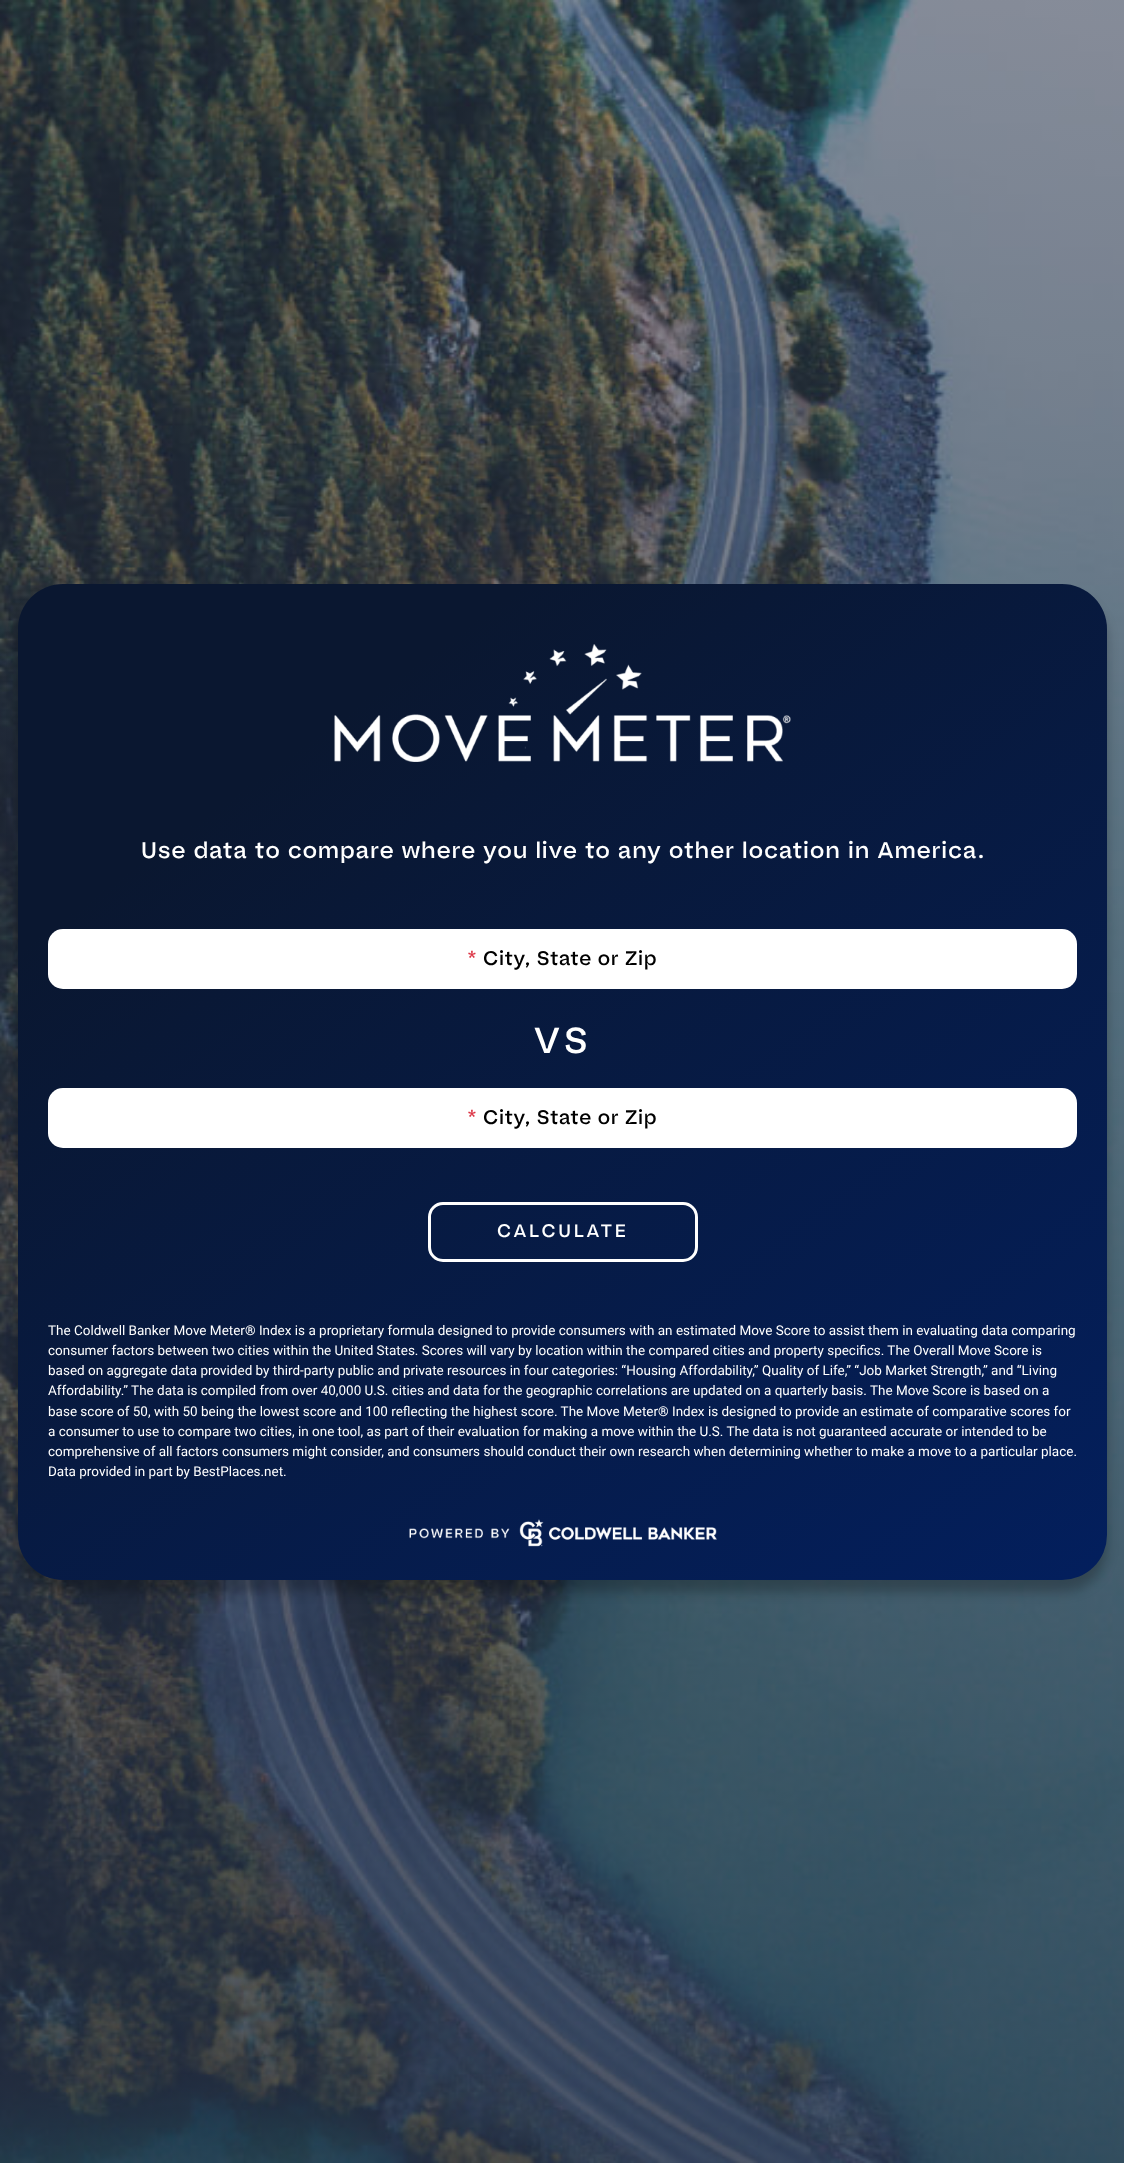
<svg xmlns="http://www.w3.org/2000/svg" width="1124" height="2163">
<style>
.a{font:500 22.5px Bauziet;letter-spacing:1.2px;fill:#fff}
.b{font:500 19.5px Bauziet;letter-spacing:0.75px;fill:#dc3545}
.c{font:500 19.5px Bauziet;letter-spacing:0.75px;fill:#000}
.d{font:500 36px Bauziet;letter-spacing:5px;fill:#fff}
.e{font:500 18px Bauziet;letter-spacing:2.75px;fill:#fff}
.f{font:13.5px Roboto;fill:#fff}
</style>
<defs>
<linearGradient id="g1" gradientUnits="userSpaceOnUse" x1="138" y1="496" x2="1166" y2="1914"><stop offset="0.17" stop-color="#0a1730"/><stop offset="1" stop-color="#012169"/></linearGradient>
</defs>
<rect width="100%" height="100%" fill="#fff"/>
<image href="1.png" x="0" y="0" width="1124" height="2163"/>
<rect fill="#00000040" filter="blur(6px)" x="18" y="596" width="1089" height="996" rx="45"/>
<rect fill="url(#g1)" x="18" y="584" width="1089" height="996" rx="45"/>
<image href="2.png" x="334" y="644" width="457" height="118"/>
<rect fill="#fff" x="48" y="929" width="1029" height="60" rx="15"/>
<rect fill="#fff" x="48" y="1088" width="1029" height="60" rx="15"/>
<rect fill="none" stroke="#fff" stroke-width="3" x="429.5" y="1203.5" width="267" height="57" rx="13.5"/>
<image href="3.png" x="409" y="1519" width="308" height="28"/>
<text class="a" x="141" y="858">Use data to compare where you live to any other location in America.</text>
<text class="b" x="467" y="965">*</text>
<text class="c" x="483" y="965">City, State or Zip</text>
<text class="d" x="534" y="1053">VS</text>
<text class="b" x="467" y="1124">*</text>
<text class="c" x="483" y="1124">City, State or Zip</text>
<text class="e" x="497" y="1237">CALCULATE</text>
<text class="f" x="48" y="1335">The Coldwell Banker Move Meter® Index is a proprietary formula designed to provide consumers with an estimated Move Score to assist them in evaluating data comparing</text>
<text class="f" x="48" y="1355">consumer factors between two cities within the United States. Scores will vary by location within the compared cities and property specifics. The Overall Move Score is</text>
<text class="f" x="48" y="1375">based on aggregate data provided by third-party public and private resources in four categories: “Housing Affordability,” Quality of Life,” “Job Market Strength,” and “Living</text>
<text class="f" x="48" y="1395">Affordability.” The data is compiled from over 40,000 U.S. cities and data for the geographic correlations are updated on a quarterly basis. The Move Score is based on a</text>
<text class="f" x="48" y="1416">base score of 50, with 50 being the lowest score and 100 reflecting the highest score. The Move Meter® Index is designed to provide an estimate of comparative scores for</text>
<text class="f" x="48" y="1436">a consumer to use to compare two cities, in one tool, as part of their evaluation for making a move within the U.S. The data is not guaranteed accurate or intended to be</text>
<text class="f" x="48" y="1456">comprehensive of all factors consumers might consider, and consumers should conduct their own research when determining whether to make a move to a particular place.</text>
<text class="f" x="48" y="1476">Data provided in part by BestPlaces.net.</text>
</svg>
